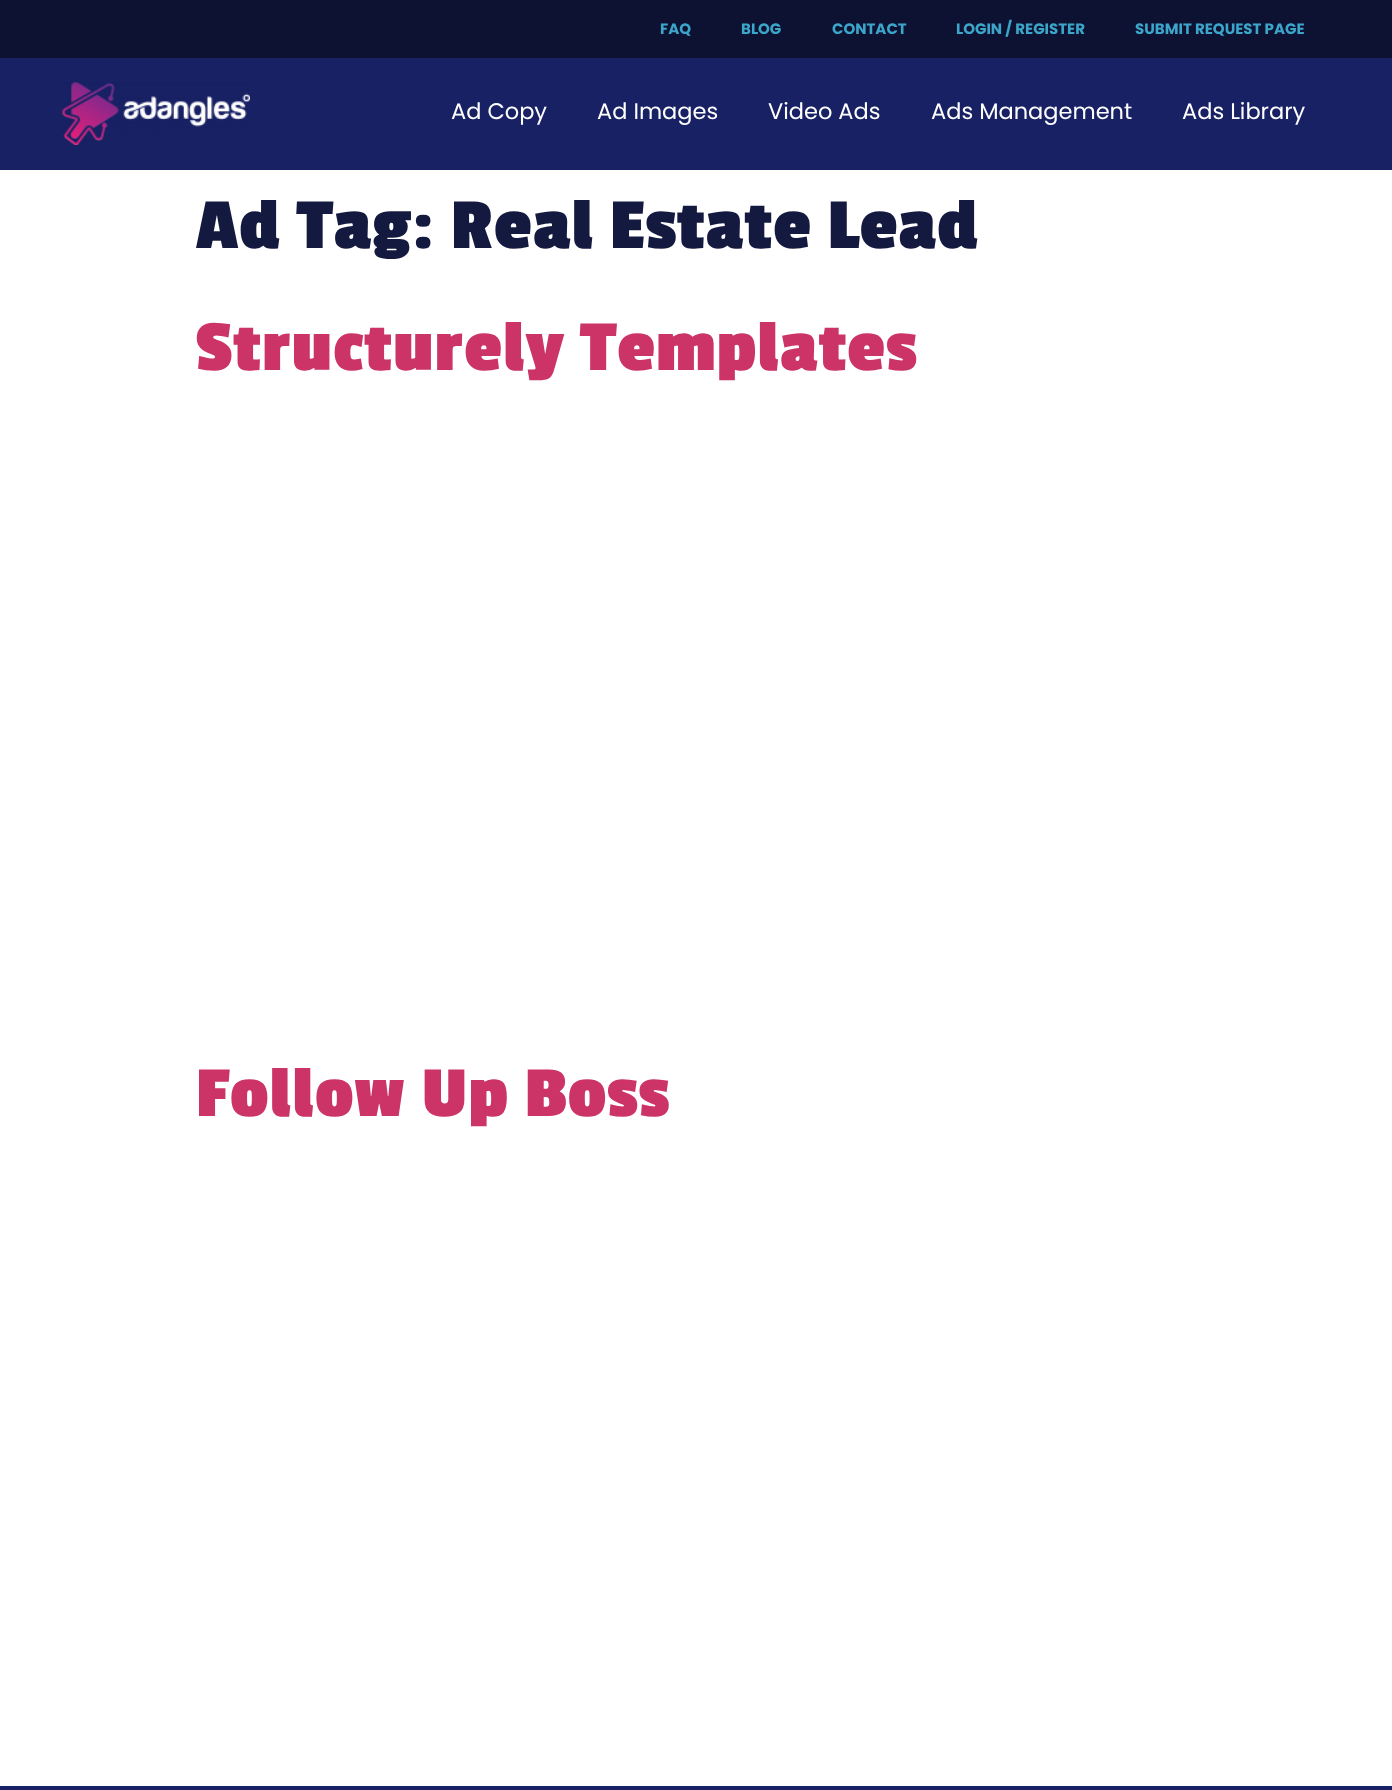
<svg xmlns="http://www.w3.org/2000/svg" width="1392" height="1790">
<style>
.a{font:bold 15px Poppins;fill:#3ba6ca}
.b{font:22.5px Poppins;fill:#fff}
.c{font:bold 75px Passion One;letter-spacing:1.25px;fill:#14193f}
.d{font:bold 75px Passion One;letter-spacing:1.25px;fill:#c36}
</style>
<rect width="100%" height="100%" fill="#fff"/>
<path fill="#0e1232" d="M0 0h1392v58H0z"/>
<path fill="#182164" d="M0 58h1392v112H0z"/>
<image href="1.png" x="62" y="82" width="188" height="63"/>
<path fill="#182164" d="M0 1786h1392v4H0z"/>
<text class="a" x="660" y="34">FAQ</text>
<text class="a" x="741" y="34">BLOG</text>
<text class="a" x="832" y="34">CONTACT</text>
<text class="a" x="956" y="34">LOGIN / REGISTER</text>
<text class="a" x="1135" y="34">SUBMIT REQUEST PAGE</text>
<text class="b" x="451" y="119">Ad Copy</text>
<text class="b" x="597" y="119">Ad Images</text>
<text class="b" x="768" y="119">Video Ads</text>
<text class="b" x="931" y="119">Ads Management</text>
<text class="b" x="1182" y="119">Ads Library</text>
<text class="c" x="196" y="248">Ad Tag: Real Estate Lead</text>
<text class="d" x="196" y="370">Structurely Templates</text>
<text class="d" x="196" y="1116">Follow Up Boss</text>
</svg>
